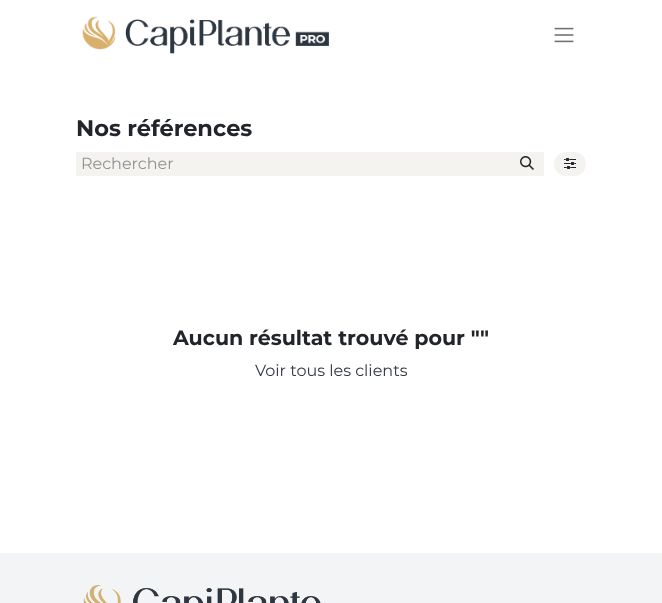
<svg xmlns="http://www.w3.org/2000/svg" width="662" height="603">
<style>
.a{font:bold 22.5px Montserrat;fill:#212529}
.b{font:16px Montserrat;fill:#909294}
.c{font:bold 20.6px Montserrat;fill:#212529}
.d{font:16px Montserrat;fill:#343a40}
</style>
<rect width="100%" height="100%" fill="#fff"/>
<image href="1.png" x="82" y="16" width="247" height="38"/>
<image href="2.png" x="554" y="27" width="20" height="16"/>
<path fill="#f5f3f0" d="M76 152h468v24H76z"/>
<image href="3.png" x="520" y="156" width="14" height="14"/>
<rect fill="#f5f3f0" x="554" y="152" width="32" height="24" rx="12"/>
<image href="4.png" x="564" y="158" width="12" height="11"/>
<path fill="#f3f4f5" d="M0 553h662v50H0z"/>
<image href="5.png" x="83" y="585" width="238" height="18"/>
<text class="a" x="76" y="136">Nos références</text>
<text class="b" x="81" y="169">Rechercher</text>
<text class="c" x="173" y="345">Aucun résultat trouvé pour "</text>
<text class="c" x="480" y="345">"</text>
<text class="d" x="255" y="376">Voir tous les clients</text>
</svg>
